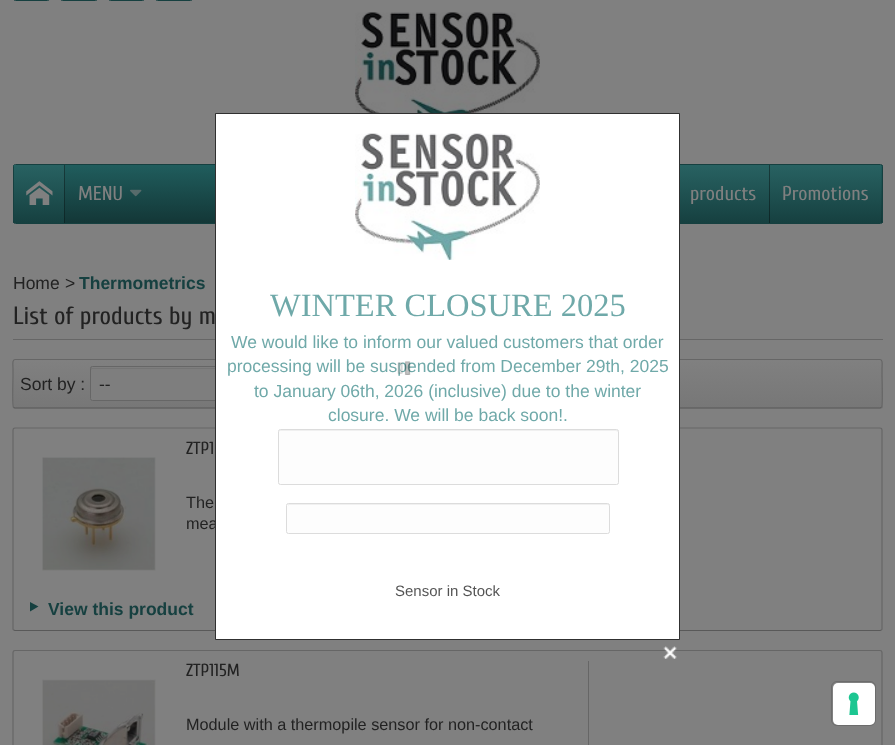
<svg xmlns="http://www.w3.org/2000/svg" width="895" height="745">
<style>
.a{font:20px Cuprum;fill:#808080}
.b{font:17.5px Liberation Sans;fill:#222}
.c{font:bold 17.5px Liberation Sans;fill:#164040}
.d{font:25px Cuprum;fill:#222}
.e{font:17.5px Cuprum;fill:#222}
.f{font:16.25px Liberation Sans;fill:#222}
.g{font:32.5px Liberation Serif;fill:#2c8080}
.h{font:17.5px Liberation Sans;fill:#2c8080}
.i{font:15px Liberation Sans;fill:#000}
</style>
<defs>
<clipPath id="clip1"><rect x="13" y="164" width="870" height="60" rx="2.5"/></clipPath>
<linearGradient id="g1" gradientUnits="userSpaceOnUse" x1="448" y1="165" x2="448" y2="223"><stop offset="0" stop-color="#205d5d"/><stop offset="1" stop-color="#133737"/></linearGradient>
<linearGradient id="g2" gradientUnits="userSpaceOnUse" x1="39" y1="165" x2="39" y2="223"><stop offset="0" stop-color="#286262"/><stop offset="1" stop-color="#164040"/></linearGradient>
<linearGradient id="g3" gradientUnits="userSpaceOnUse" x1="39" y1="165" x2="39" y2="223"><stop offset="0" stop-color="#183b3b"/><stop offset="1" stop-color="#0d2727"/></linearGradient>
<linearGradient id="g4" gradientUnits="userSpaceOnUse" x1="704" y1="165" x2="704" y2="223"><stop offset="0" stop-color="#286262"/><stop offset="1" stop-color="#164040"/></linearGradient>
<linearGradient id="g5" gradientUnits="userSpaceOnUse" x1="826" y1="165" x2="826" y2="223"><stop offset="0" stop-color="#286262"/><stop offset="1" stop-color="#164040"/></linearGradient>
<linearGradient id="g6" gradientUnits="userSpaceOnUse" x1="826" y1="165" x2="826" y2="223"><stop offset="0" stop-color="#183b3b"/><stop offset="1" stop-color="#0d2727"/></linearGradient>
<clipPath id="clip2"><rect x="13" y="359" width="870" height="50" rx="2.5"/></clipPath>
<linearGradient id="g7" gradientUnits="userSpaceOnUse" x1="448" y1="360" x2="448" y2="408"><stop offset="0" stop-color="#808080"/><stop offset="1" stop-color="#777"/></linearGradient>
</defs>
<rect width="100%" height="100%" fill="#808080"/>
<rect fill="none" stroke="#164040" x="13.5" y="-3.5" width="36" height="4" rx="2"/>
<rect fill="none" stroke="#164040" x="60.5" y="-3.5" width="37" height="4" rx="2"/>
<rect fill="none" stroke="#164040" x="108.5" y="-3.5" width="36" height="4" rx="2"/>
<rect fill="none" stroke="#164040" x="155.5" y="-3.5" width="37" height="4" rx="2"/>
<image href="1.png" x="355" y="12" width="185" height="101"/>
<g clip-path="url(#clip1)">
<path fill="url(#g1)" d="M13 165h870v58H13z"/>
</g>
<rect fill="none" stroke="#164040" x="13.5" y="164.5" width="869" height="59" rx="2"/>
<path fill="url(#g2)" d="M14 165h50v58H14z"/>
<path fill="url(#g3)" d="M64 165h1v58H64z"/>
<image href="2.png" x="26" y="181" width="27" height="24"/>
<image href="3.png" x="130" y="189" width="12" height="8"/>
<path fill="url(#g4)" d="M680 165h89v58H680z"/>
<path fill="url(#g5)" d="M770 165h111v58H770z"/>
<path fill="url(#g6)" d="M769 165h1v58H769z"/>
<path fill="#666" d="M13 339h870v1H13z"/>
<rect fill="#7c7c7c" x="13" y="359" width="870" height="50" rx="2.5"/>
<g clip-path="url(#clip2)">
<path fill="url(#g7)" d="M13 360h870v48H13z"/>
</g>
<path fill="none" stroke="#595959" stroke-width="1.2" d="M881.5 407.5l-1.5 .5h-865l-1.5-.5"/>
<path fill="none" stroke="#666" stroke-width="1.2" d="M13.5 407.5c-1.5-1.5-.5-27.5-.5-31.5v-7c0-4-1-9.5 2-9.5h865c3 0 2 5.5 2 9.5v7c0 4 1 30-.5 31.5"/>
<rect fill="#7e7e7e" x="90" y="366" width="204" height="35" rx="2.5"/>
<path fill="#757575" d="M92 369h199c1 0 1 0 1 1v30l1-1v-31h-202v2z"/>
<rect fill="none" stroke="#666" x="90.5" y="366.5" width="203" height="34" rx="2"/>
<path fill="none" stroke="#595959" stroke-width="1.2" d="M881.5 630l-1.5 .5h-865l-1.5-.5"/>
<path fill="none" stroke="#666" stroke-width="1.2" d="M13.5 630l-.5-1v-199l.5-1.5l1.5-.5h865l1.5 .5l.5 1.5v199l-.5 1"/>
<image href="4.png" x="42" y="457" width="114" height="114"/>
<path fill="#164040" d="M30 602v9.5l8.5-5z"/>
<path fill="none" stroke="#666" stroke-width="1.2" d="M13.5 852.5l-.5-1.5v-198.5l.5-1.5l1.5-.5h865l1.5 .5l.5 1.5v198.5l-.5 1.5"/>
<path fill="#666" d="M588 661h1v84H588z"/>
<image href="5.png" x="42" y="679" width="114" height="66"/>
<image href="8.png" x="663" y="646" width="14" height="13"/>
<rect fill="none" stroke="#6c6c6c" x="831.5" y="681.5" width="44" height="44" rx="5.5"/>
<rect fill="#fff" x="833" y="683" width="42" height="42" rx="5"/>
<image href="9.png" x="848" y="692" width="11" height="23"/>
<text class="a" x="78" y="200">MENU</text>
<text class="a" x="690" y="200">products</text>
<text class="a" x="782" y="200">Promotions</text>
<text class="b" x="13" y="289">Home</text>
<text class="b" x="65" y="289">&gt;</text>
<text class="c" x="79" y="289">Thermometrics</text>
<text class="d" x="13" y="324">List of products by m</text>
<text class="b" x="20" y="390">Sort by :</text>
<text class="b" x="99" y="390">--</text>
<text class="e" x="186" y="454">ZTP1</text>
<text class="f" x="186" y="508">The</text>
<text class="f" x="186" y="529">mea</text>
<text class="c" x="48" y="615">View this product</text>
<text class="e" x="186" y="676">ZTP115M</text>
<text class="f" x="186" y="730">Module with a thermopile sensor for non-contact</text>
<path fill="none" stroke="#303030" d="M215.5 113.5h464v526H215.5z"/>
<path fill="#fff" d="M216 114h463v525H216z"/>
<image href="7.png" x="355" y="133" width="185" height="127"/>
<text class="g" x="270" y="316">WINTER CLOSURE 2025</text>
<text class="h" x="231" y="348">We would like to inform our valued customers that order</text>
<text class="h" x="227" y="372">processing will be suspended from December 29th, 2025</text>
<text class="h" x="254" y="397">to January 06th, 2026 (inclusive) due to the winter</text>
<text class="h" x="328" y="421">closure. We will be back soon!.</text>
<rect fill="#fcfcfc" x="278" y="429" width="341" height="56" rx="2.5"/>
<path fill="#e9e9e9" d="M280 431h336l2 1c0-1 0-2-1-2h-337l-1 1v1z"/>
<rect fill="none" stroke="#ccc" x="278.5" y="429.5" width="340" height="55" rx="2"/>
<rect fill="#fcfcfc" x="286" y="503" width="324" height="31" rx="2.5"/>
<path fill="#e9e9e9" d="M289 505h319l1 1c0-1 0-2-1-2h-319h-1v2z"/>
<rect fill="none" stroke="#ccc" x="286.5" y="503.5" width="323" height="30" rx="2"/>
<text class="i" x="395" y="596">Sensor in Stock</text>
<path fill="#ffffff52" d="M227 133h441v464H227z"/>
<image href="6.png" x="397" y="361" width="14" height="14"/>
</svg>
